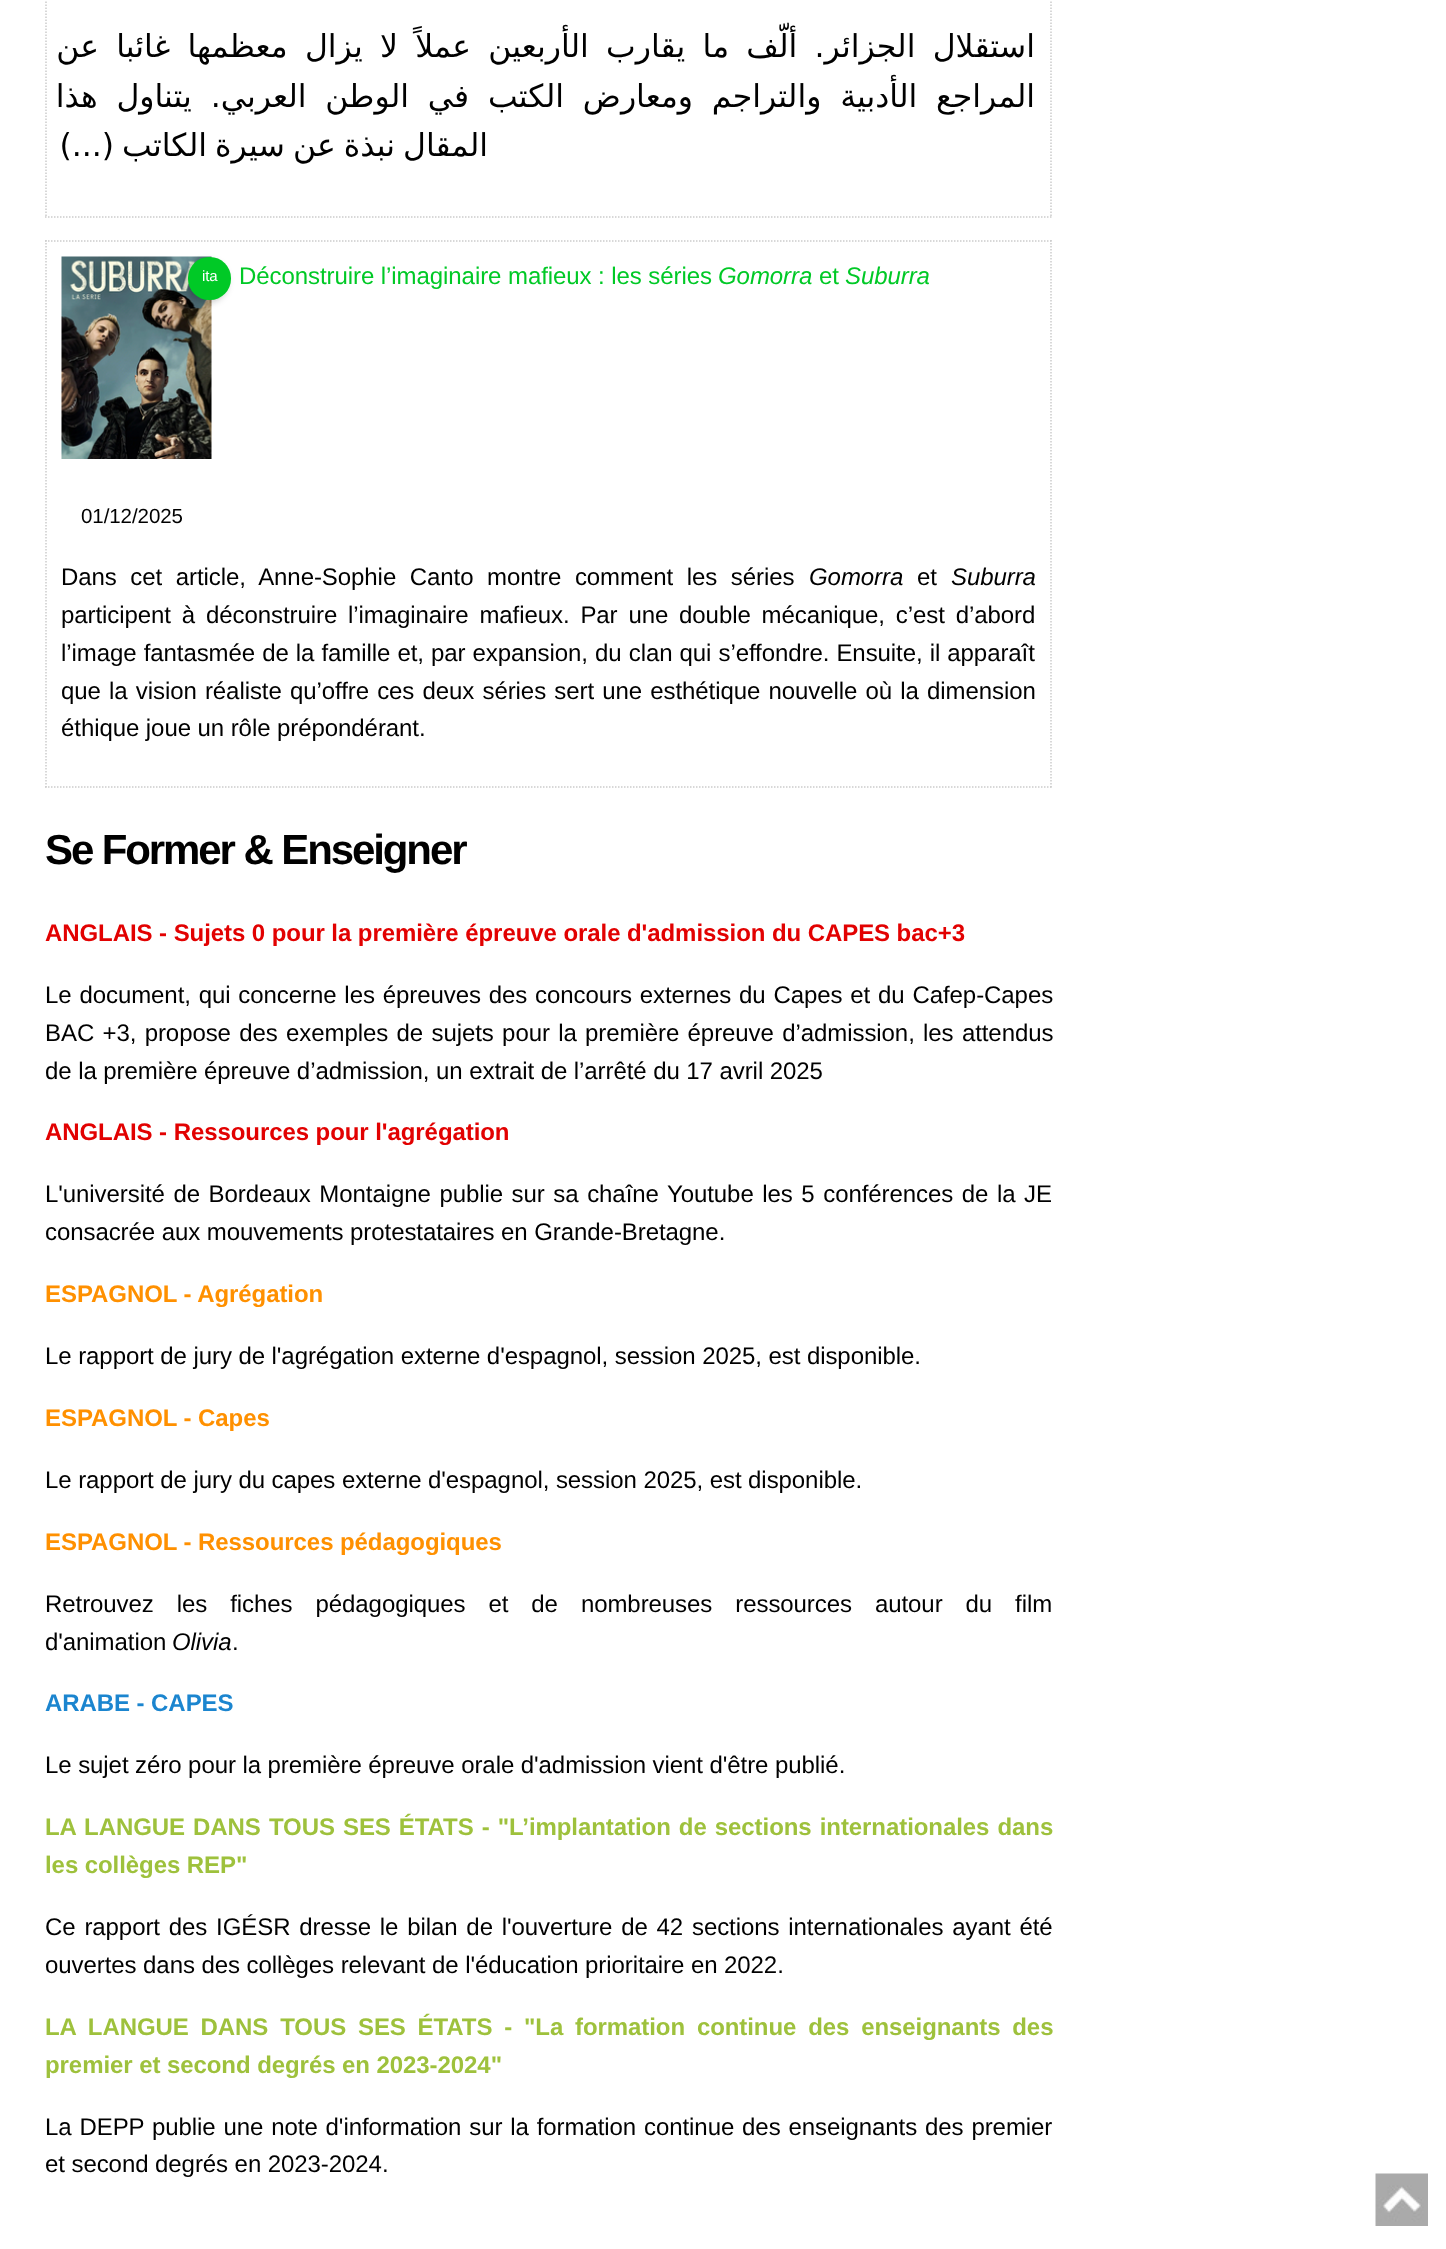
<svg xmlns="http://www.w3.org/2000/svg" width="1446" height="2249">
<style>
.a{font:31.5px DejaVu Sans;letter-spacing:-0.07px;direction:rtl;fill:#000}
.b{font:15px Liberation Sans;letter-spacing:-0.07px;fill:#fff}
.c{font:24px Liberation Sans;letter-spacing:-0.07px;fill:#00c926}
.d{font:italic 24px Liberation Sans;letter-spacing:-0.07px;fill:#00c926}
.e{font:20.5px Liberation Sans;letter-spacing:-0.07px;fill:#000}
.f{font:24px Liberation Sans;letter-spacing:-0.07px;fill:#000}
.g{font:italic 24px Liberation Sans;letter-spacing:-0.07px;fill:#000}
.h{font:bold 42px Liberation Sans;letter-spacing:-2.1px;fill:#000}
.i{font:bold 24px Liberation Sans;letter-spacing:-0.07px;fill:#e20101}
.j{font:bold 24px Liberation Sans;letter-spacing:-0.07px;fill:#ff9000}
.k{font:bold 24px Liberation Sans;letter-spacing:-0.07px;fill:#1b85cf}
.l{font:bold 24px Liberation Sans;letter-spacing:-0.07px;fill:#9ec13c}
</style>
<rect width="100%" height="100%" fill="#fff"/>
<path fill="none" stroke="#ccc" stroke-width="1.5" stroke-dasharray="1.5 1.5" d="M1051-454.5v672"/>
<path fill="none" stroke="#ccc" stroke-width="1.5" stroke-dasharray="1.5 1.5" d="M45 217h1006.5"/>
<path fill="none" stroke="#ccc" stroke-width="1.5" stroke-dasharray="1.5 1.5" d="M46-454.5v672"/>
<path fill="none" stroke="#ccc" stroke-width="1.5" stroke-dasharray="1.5 1.5" d="M45 241h1006.5"/>
<path fill="none" stroke="#ccc" stroke-width="1.5" stroke-dasharray="1.5 1.5" d="M1051 240v547.5"/>
<path fill="none" stroke="#ccc" stroke-width="1.5" stroke-dasharray="1.5 1.5" d="M45 787h1006.5"/>
<path fill="none" stroke="#ccc" stroke-width="1.5" stroke-dasharray="1.5 1.5" d="M46 240v547.5"/>
<image href="1.png" x="61" y="256" width="151" height="203"/>
<rect fill="#00000033" filter="blur(3px)" x="185" y="260" width="43" height="43" rx="21"/>
<rect fill="#00c926" x="188" y="257" width="43" height="43" rx="21"/>
<image href="2.png" x="1375" y="2173" width="53" height="53"/>
<text class="a" x="1035" y="57" word-spacing="7.25">استقلال الجزائر. ألّف ما يقارب الأربعين عملاً لا يزال معظمها غائبا عن</text>
<text class="a" x="1035" y="107" word-spacing="8.75">المراجع الأدبية والتراجم ومعارض الكتب في الوطن العربي. يتناول هذا</text>
<text class="a" x="488" y="156" word-spacing="-2">المقال نبذة عن سيرة الكاتب (...)</text>
<text class="b" x="202" y="281">ita</text>
<text class="c" x="239" y="284">Déconstruire l’imaginaire mafieux : les séries</text>
<text class="d" x="718" y="284">Gomorra</text>
<text class="c" x="819" y="284">et</text>
<text class="d" x="845" y="284">Suburra</text>
<text class="e" x="81" y="523">01/12/2025</text>
<text class="f" x="61" y="585" word-spacing="7">Dans cet article, Anne-Sophie Canto montre comment les séries</text>
<text class="g" x="809" y="585">Gomorra</text>
<text class="f" x="917" y="585">et</text>
<text class="g" x="951" y="585">Suburra</text>
<text class="f" x="61" y="623" word-spacing="4.25">participent à déconstruire l’imaginaire mafieux. Par une double mécanique, c’est d’abord</text>
<text class="f" x="61" y="661" word-spacing="0.5">l’image fantasmée de la famille et, par expansion, du clan qui s’effondre. Ensuite, il apparaît</text>
<text class="f" x="61" y="699" word-spacing="1.6">que la vision réaliste qu’offre ces deux séries sert une esthétique nouvelle où la dimension</text>
<text class="f" x="61" y="736">éthique joue un rôle prépondérant.</text>
<text class="h" x="45" y="864">Se Former &amp; Enseigner</text>
<text class="i" x="45" y="941">ANGLAIS - Sujets 0 pour la première épreuve orale d'admission du CAPES bac+3</text>
<text class="f" x="45" y="1003" word-spacing="1.25">Le document, qui concerne les épreuves des concours externes du Capes et du Cafep-Capes</text>
<text class="f" x="45" y="1041" word-spacing="1.75">BAC +3, propose des exemples de sujets pour la première épreuve d’admission, les attendus</text>
<text class="f" x="45" y="1079">de la première épreuve d’admission, un extrait de l’arrêté du 17 avril 2025</text>
<text class="i" x="45" y="1140">ANGLAIS - Ressources pour l'agrégation</text>
<text class="f" x="45" y="1202" word-spacing="2">L'université de Bordeaux Montaigne publie sur sa chaîne Youtube les 5 conférences de la JE</text>
<text class="f" x="45" y="1240">consacrée aux mouvements protestataires en Grande-Bretagne.</text>
<text class="j" x="45" y="1302">ESPAGNOL - Agrégation</text>
<text class="f" x="45" y="1364">Le rapport de jury de l'agrégation externe d'espagnol, session 2025, est disponible.</text>
<text class="j" x="45" y="1426">ESPAGNOL - Capes</text>
<text class="f" x="45" y="1488">Le rapport de jury du capes externe d'espagnol, session 2025, est disponible.</text>
<text class="j" x="45" y="1550">ESPAGNOL - Ressources pédagogiques</text>
<text class="f" x="45" y="1612" word-spacing="16.4">Retrouvez les fiches pédagogiques et de nombreuses ressources autour du film</text>
<text class="f" x="45" y="1650">d'animation</text>
<text class="g" x="172" y="1650">Olivia</text>
<text class="f" x="232" y="1650">.</text>
<text class="k" x="45" y="1711">ARABE - CAPES</text>
<text class="f" x="45" y="1773">Le sujet zéro pour la première épreuve orale d'admission vient d'être publié.</text>
<text class="l" x="45" y="1835" word-spacing="1.5">LA LANGUE DANS TOUS SES ÉTATS - "L’implantation de sections internationales dans</text>
<text class="l" x="45" y="1873">les collèges REP"</text>
<text class="f" x="45" y="1935" word-spacing="2.25">Ce rapport des IGÉSR dresse le bilan de l'ouverture de 42 sections internationales ayant été</text>
<text class="f" x="45" y="1973">ouvertes dans des collèges relevant de l'éducation prioritaire en 2022.</text>
<text class="l" x="45" y="2035" word-spacing="5.25">LA LANGUE DANS TOUS SES ÉTATS - "La formation continue des enseignants des</text>
<text class="l" x="45" y="2073">premier et second degrés en 2023-2024"</text>
<text class="f" x="45" y="2135" word-spacing="1.3">La DEPP publie une note d'information sur la formation continue des enseignants des premier</text>
<text class="f" x="45" y="2172">et second degrés en 2023-2024.</text>
</svg>
